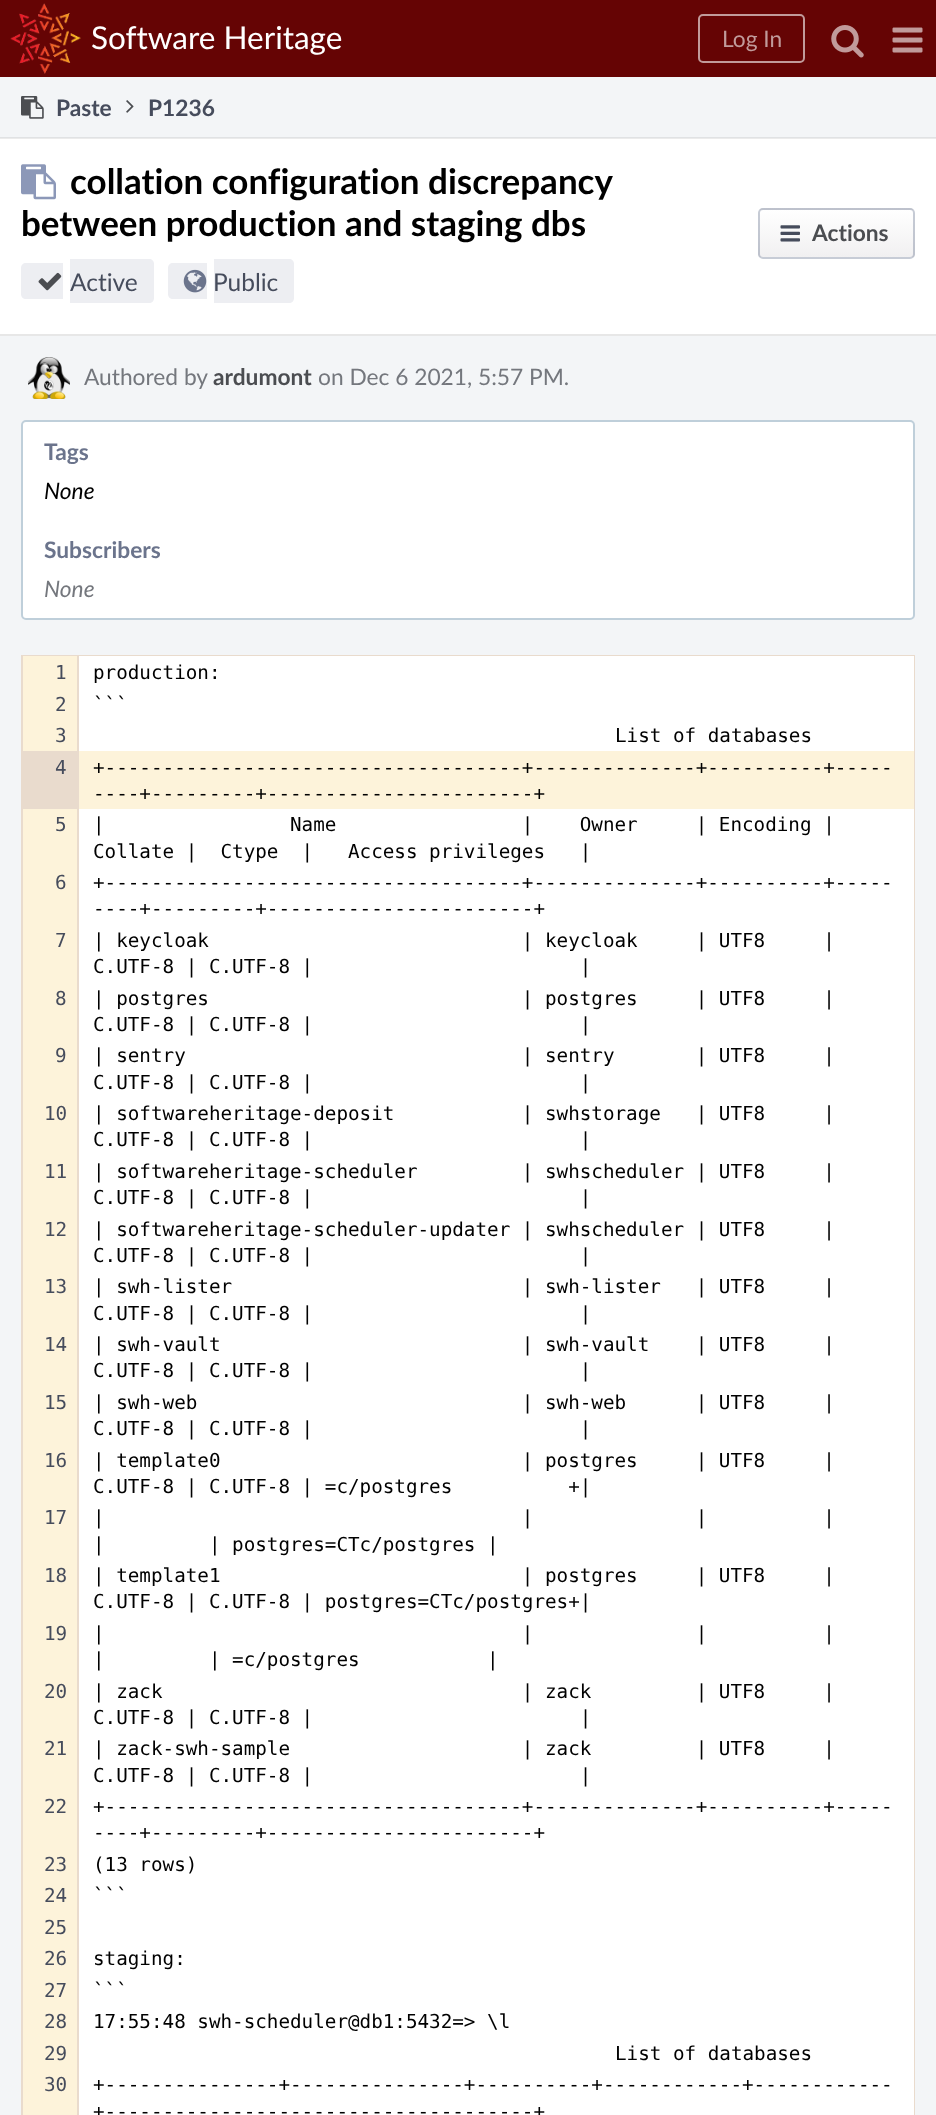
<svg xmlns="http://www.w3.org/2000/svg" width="936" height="2115">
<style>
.a{font:31.5px Lato;fill:#fff}
.b{font:22.75px Lato;fill:#c19b9b}
.c{font:bold 22.75px Lato;fill:#464c5c}
.d{font:bold 35px Lato;fill:#000}
.e{font:24.5px Lato;fill:#464c5c}
.f{font:bold 22.75px Lato;fill:#4b4d51}
.g{font:22.75px Lato;fill:#74777d}
.h{font:bold 22.75px Lato;fill:#6b748c}
.i{font:italic 22.75px Lato;fill:#000}
.j{font:italic 22.75px Lato;fill:#74777d}
.k{font:19.25px DejaVu Sans Mono;fill:#464c5c}
.l{font:19.25px DejaVu Sans Mono;fill:#000}
</style>
<defs>
<clipPath id="clip1"><rect x="758" y="208" width="157" height="51" rx="5"/></clipPath>
<linearGradient id="g1" gradientUnits="userSpaceOnUse" x1="837" y1="163" x2="837" y2="210"><stop offset="0" stop-color="#fff"/><stop offset="1" stop-color="#f1f0f1"/></linearGradient>
<linearGradient id="g2" gradientUnits="userSpaceOnUse" x1="837" y1="210" x2="837" y2="257"><stop offset="0" stop-color="#fff"/><stop offset="1" stop-color="#f1f0f1"/></linearGradient>
</defs>
<rect width="100%" height="100%" fill="#f3f5f7"/>
<path fill="#e0e2e4" d="M0 137h936v1H0z"/>
<path fill="#650404" d="M0 0h936v77H0z"/>
<image href="1.png" x="10" y="3" width="71" height="71"/>
<rect fill="none" stroke="#c19b9b" stroke-width="2" x="699" y="15" width="105" height="47" rx="4"/>
<image href="2.png" x="831" y="25" width="33" height="33"/>
<image href="3.png" x="892" y="27" width="31" height="26"/>
<image href="4.png" x="21" y="96" width="23" height="23"/>
<image href="5.png" x="126" y="100" width="8" height="13"/>
<path fill="#fff" d="M0 139h936v195H0z"/>
<path fill="#ebebeb" d="M0 138h936v1H0z"/>
<path fill="#e7e7e7" d="M0 334h936v2H0z"/>
<image href="6.png" x="21" y="164" width="35" height="36"/>
<path fill="#edeef2" d="M26 263h37v36h-37c-3 0-5-2-5-5v-26c0-3 2-5 5-5z"/>
<path fill="#edeef2" d="M70 259h79c3 0 5 2 5 5v34c0 3-2 5-5 5h-79z"/>
<image href="7.png" x="38" y="272" width="24" height="19"/>
<path fill="#edeef2" d="M173 263h34v36h-34c-3 0-5-2-5-5v-26c0-3 2-5 5-5z"/>
<path fill="#edeef2" d="M214 259h75c3 0 5 2 5 5v34c0 3-2 5-5 5h-75z"/>
<image href="8.png" x="183" y="269" width="24" height="24"/>
<g clip-path="url(#clip1)">
<path fill="url(#g1)" d="M758 208h157v2H758z"/>
<path fill="url(#g2)" d="M758 210h157v47H758z"/>
</g>
<rect fill="none" stroke="#4757784d" stroke-width="2" x="759" y="209" width="155" height="49" rx="4"/>
<image href="9.png" x="780" y="225" width="20" height="17"/>
<image href="10.png" x="28" y="357" width="42" height="42"/>
<rect fill="#fff" stroke="#bfcfda" stroke-width="2" x="22" y="421" width="892" height="198" rx="4"/>
<path fill="none" stroke="#e9dbcd" stroke-width="2" d="M22 656h892v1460H22z"/>
<path fill="#fdf3da" d="M23 656h54v95H23z"/>
<path fill="#fff" d="M79 656h835v95H79z"/>
<path fill="#e9dbcd" d="M23 751h56v58H23z"/>
<path fill="#e9dbcd" d="M77 656h2v97H77z"/>
<path fill="#fdf3da" d="M79 751h835v58H79z"/>
<path fill="#fdf3da" d="M23 809h54v1306H23z"/>
<path fill="#fff" d="M79 809h835v1306H79z"/>
<path fill="#e9dbcd" d="M77 809h2v1306H77z"/>
<text class="a" x="91" y="49">Software Heritage</text>
<text class="b" x="722" y="47">Log In</text>
<text class="c" x="56" y="116">Paste</text>
<text class="c" x="148" y="116">P1236</text>
<text class="d" x="70" y="194">collation configuration discrepancy</text>
<text class="d" x="21" y="236">between production and staging dbs</text>
<text class="e" x="70" y="291">Active</text>
<text class="e" x="213" y="291">Public</text>
<text class="f" x="812" y="241">Actions</text>
<text class="g" x="84" y="385">Authored by</text>
<text class="f" x="213" y="385">ardumont</text>
<text class="g" x="318" y="385">on Dec 6 2021, 5:57 PM.</text>
<text class="h" x="44" y="460">Tags</text>
<text class="i" x="44" y="499">None</text>
<text class="h" x="44" y="558">Subscribers</text>
<text class="j" x="44" y="597">None</text>
<text class="k" x="55" y="679">1</text>
<text class="l" x="93" y="679">production:</text>
<text class="k" x="55" y="711">2</text>
<text class="l" x="93" y="711">```</text>
<text class="k" x="55" y="742">3</text>
<text class="l" x="615" y="742">List of databases</text>
<text class="k" x="55" y="774">4</text>
<text class="l" x="93" y="774">+------------------------------------+--------------+----------+-----</text>
<text class="l" x="93" y="800">----+---------+-----------------------+</text>
<text class="k" x="55" y="831">5</text>
<text class="l" xml:space="preserve" x="93" y="831">|                Name                |    Owner     | Encoding |</text>
<text class="l" xml:space="preserve" x="93" y="858">Collate |  Ctype  |   Access privileges   |</text>
<text class="k" x="55" y="889">6</text>
<text class="l" x="93" y="889">+------------------------------------+--------------+----------+-----</text>
<text class="l" x="93" y="915">----+---------+-----------------------+</text>
<text class="k" x="55" y="947">7</text>
<text class="l" xml:space="preserve" x="93" y="947">| keycloak                           | keycloak     | UTF8     |</text>
<text class="l" xml:space="preserve" x="93" y="973">C.UTF-8 | C.UTF-8 |                       |</text>
<text class="k" x="55" y="1005">8</text>
<text class="l" xml:space="preserve" x="93" y="1005">| postgres                           | postgres     | UTF8     |</text>
<text class="l" xml:space="preserve" x="93" y="1031">C.UTF-8 | C.UTF-8 |                       |</text>
<text class="k" x="55" y="1062">9</text>
<text class="l" xml:space="preserve" x="93" y="1062">| sentry                             | sentry       | UTF8     |</text>
<text class="l" xml:space="preserve" x="93" y="1089">C.UTF-8 | C.UTF-8 |                       |</text>
<text class="k" x="44" y="1120">10</text>
<text class="l" xml:space="preserve" x="93" y="1120">| softwareheritage-deposit           | swhstorage   | UTF8     |</text>
<text class="l" xml:space="preserve" x="93" y="1146">C.UTF-8 | C.UTF-8 |                       |</text>
<text class="k" x="44" y="1178">11</text>
<text class="l" xml:space="preserve" x="93" y="1178">| softwareheritage-scheduler         | swhscheduler | UTF8     |</text>
<text class="l" xml:space="preserve" x="93" y="1204">C.UTF-8 | C.UTF-8 |                       |</text>
<text class="k" x="44" y="1236">12</text>
<text class="l" xml:space="preserve" x="93" y="1236">| softwareheritage-scheduler-updater | swhscheduler | UTF8     |</text>
<text class="l" xml:space="preserve" x="93" y="1262">C.UTF-8 | C.UTF-8 |                       |</text>
<text class="k" x="44" y="1293">13</text>
<text class="l" xml:space="preserve" x="93" y="1293">| swh-lister                         | swh-lister   | UTF8     |</text>
<text class="l" xml:space="preserve" x="93" y="1320">C.UTF-8 | C.UTF-8 |                       |</text>
<text class="k" x="44" y="1351">14</text>
<text class="l" xml:space="preserve" x="93" y="1351">| swh-vault                          | swh-vault    | UTF8     |</text>
<text class="l" xml:space="preserve" x="93" y="1377">C.UTF-8 | C.UTF-8 |                       |</text>
<text class="k" x="44" y="1409">15</text>
<text class="l" xml:space="preserve" x="93" y="1409">| swh-web                            | swh-web      | UTF8     |</text>
<text class="l" xml:space="preserve" x="93" y="1435">C.UTF-8 | C.UTF-8 |                       |</text>
<text class="k" x="44" y="1467">16</text>
<text class="l" xml:space="preserve" x="93" y="1467">| template0                          | postgres     | UTF8     |</text>
<text class="l" xml:space="preserve" x="93" y="1493">C.UTF-8 | C.UTF-8 | =c/postgres          +|</text>
<text class="k" x="44" y="1524">17</text>
<text class="l" xml:space="preserve" x="93" y="1524">|                                    |              |          |</text>
<text class="l" xml:space="preserve" x="93" y="1551">|         | postgres=CTc/postgres |</text>
<text class="k" x="44" y="1582">18</text>
<text class="l" xml:space="preserve" x="93" y="1582">| template1                          | postgres     | UTF8     |</text>
<text class="l" x="93" y="1608">C.UTF-8 | C.UTF-8 | postgres=CTc/postgres+|</text>
<text class="k" x="44" y="1640">19</text>
<text class="l" xml:space="preserve" x="93" y="1640">|                                    |              |          |</text>
<text class="l" xml:space="preserve" x="93" y="1666">|         | =c/postgres           |</text>
<text class="k" x="44" y="1698">20</text>
<text class="l" xml:space="preserve" x="93" y="1698">| zack                               | zack         | UTF8     |</text>
<text class="l" xml:space="preserve" x="93" y="1724">C.UTF-8 | C.UTF-8 |                       |</text>
<text class="k" x="44" y="1755">21</text>
<text class="l" xml:space="preserve" x="93" y="1755">| zack-swh-sample                    | zack         | UTF8     |</text>
<text class="l" xml:space="preserve" x="93" y="1782">C.UTF-8 | C.UTF-8 |                       |</text>
<text class="k" x="44" y="1813">22</text>
<text class="l" x="93" y="1813">+------------------------------------+--------------+----------+-----</text>
<text class="l" x="93" y="1839">----+---------+-----------------------+</text>
<text class="k" x="44" y="1871">23</text>
<text class="l" x="93" y="1871">(13 rows)</text>
<text class="k" x="44" y="1902">24</text>
<text class="l" x="93" y="1902">```</text>
<text class="k" x="44" y="1934">25</text>
<text class="k" x="44" y="1965">26</text>
<text class="l" x="93" y="1965">staging:</text>
<text class="k" x="44" y="1997">27</text>
<text class="l" x="93" y="1997">```</text>
<text class="k" x="44" y="2028">28</text>
<text class="l" x="93" y="2028">17:55:48 swh-scheduler@db1:5432=&gt; \l</text>
<text class="k" x="44" y="2060">29</text>
<text class="l" x="615" y="2060">List of databases</text>
<text class="k" x="44" y="2091">30</text>
<text class="l" x="93" y="2091">+---------------+---------------+----------+------------+------------</text>
<text class="l" x="93" y="2118">+-------------------------------------+</text>
</svg>
